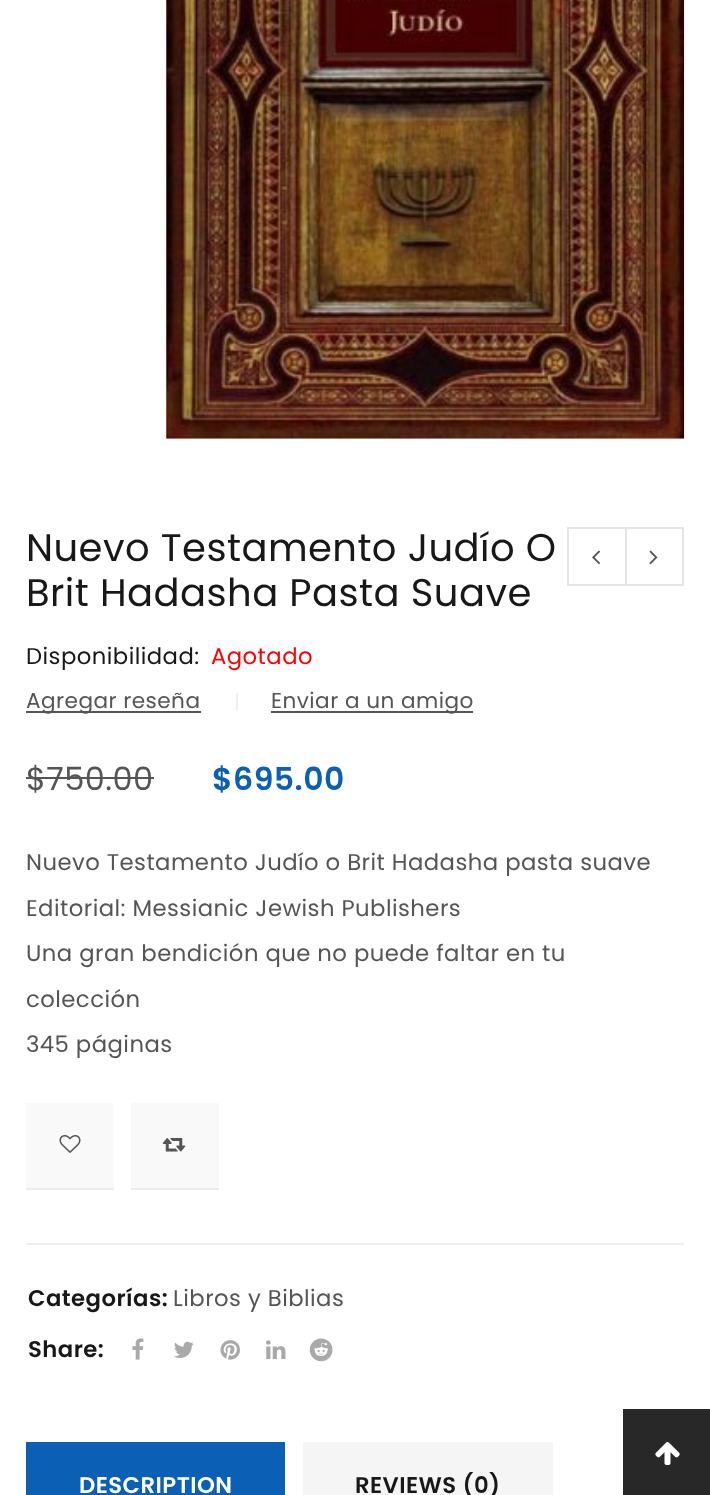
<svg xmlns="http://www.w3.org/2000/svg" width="710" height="1495">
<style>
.a{font:38.5px Poppins;letter-spacing:0.45px;fill:#181818}
.b{font:22.75px Poppins;letter-spacing:0.45px;fill:#181818}
.c{font:22.75px Poppins;letter-spacing:0.45px;fill:#f00}
.d{font:21.6px Poppins;letter-spacing:0.45px;fill:#555}
.e{font:32px Poppins;letter-spacing:0.45px;fill:#555}
.f{font:600 31.5px Poppins;letter-spacing:0.45px;fill:#0b5fb5}
.g{font:22.75px Poppins;letter-spacing:0.45px;fill:#555}
.h{font:600 22.75px Poppins;letter-spacing:0.45px;fill:#181818}
.i{font:600 22.75px Poppins;letter-spacing:0.45px;fill:#fff}
</style>
<rect width="100%" height="100%" fill="#fff"/>
<image href="1.png" x="166" y="0" width="519" height="439"/>
<path fill="none" stroke="#e5e5e5" stroke-width="2" d="M568 528h58v57H568z"/>
<image href="2.png" x="592" y="550" width="8" height="15"/>
<path fill="none" stroke="#e5e5e5" stroke-width="2" d="M626 528h57v57H626z"/>
<image href="3.png" x="649" y="550" width="9" height="15"/>
<path fill="#555" d="M26 711h175v2H26z"/>
<path fill="#efefef" d="M236 693h2v18H236z"/>
<path fill="#555" d="M271 711h202v2H271z"/>
<path fill="#555" d="M26 777h128v2H26z"/>
<path fill="#f9f9f9" d="M26 1103h88v85H26z"/>
<path fill="#ececec" d="M26 1188h88v2H26z"/>
<image href="4.png" x="59" y="1135" width="22" height="18"/>
<path fill="#f9f9f9" d="M131 1103h88v85H131z"/>
<path fill="#ececec" d="M131 1188h88v2H131z"/>
<image href="5.png" x="162" y="1138" width="24" height="14"/>
<path fill="#efefef" d="M26 1243h658v2H26z"/>
<image href="6.png" x="132" y="1338" width="12" height="22"/>
<image href="7.png" x="174" y="1341" width="20" height="17"/>
<image href="8.png" x="220" y="1340" width="20" height="20"/>
<image href="9.png" x="266" y="1340" width="20" height="19"/>
<image href="10.png" x="309" y="1338" width="24" height="24"/>
<path fill="#0b5fb5" d="M26 1442h259v53H26z"/>
<path fill="#f5f5f5" d="M303 1442h250v53H303z"/>
<path fill="#282828" d="M623 1409h87v86H623z"/>
<image href="11.png" x="655" y="1442" width="25" height="23"/>
<text class="a" x="26" y="561">Nuevo Testamento Judío O</text>
<text class="a" x="26" y="606">Brit Hadasha Pasta Suave</text>
<text class="b" x="26" y="664">Disponibilidad:</text>
<text class="c" x="211" y="664">Agotado</text>
<text class="d" x="26" y="708">Agregar reseña</text>
<text class="d" x="271" y="708">Enviar a un amigo</text>
<text class="e" x="26" y="790">$750.00</text>
<text class="f" x="212" y="790">$695.00</text>
<text class="g" x="26" y="870">Nuevo Testamento Judío o Brit Hadasha pasta suave</text>
<text class="g" x="26" y="916">Editorial: Messianic Jewish Publishers</text>
<text class="g" x="26" y="961">Una gran bendición que no puede faltar en tu</text>
<text class="g" x="26" y="1007">colección</text>
<text class="g" x="26" y="1052">345 páginas</text>
<text class="h" x="28" y="1306">Categorías:</text>
<text class="g" x="173" y="1306">Libros y Biblias</text>
<text class="h" x="28" y="1357">Share:</text>
<text class="i" x="79" y="1493">DESCRIPTION</text>
<text class="h" x="355" y="1493">REVIEWS (0)</text>
</svg>
